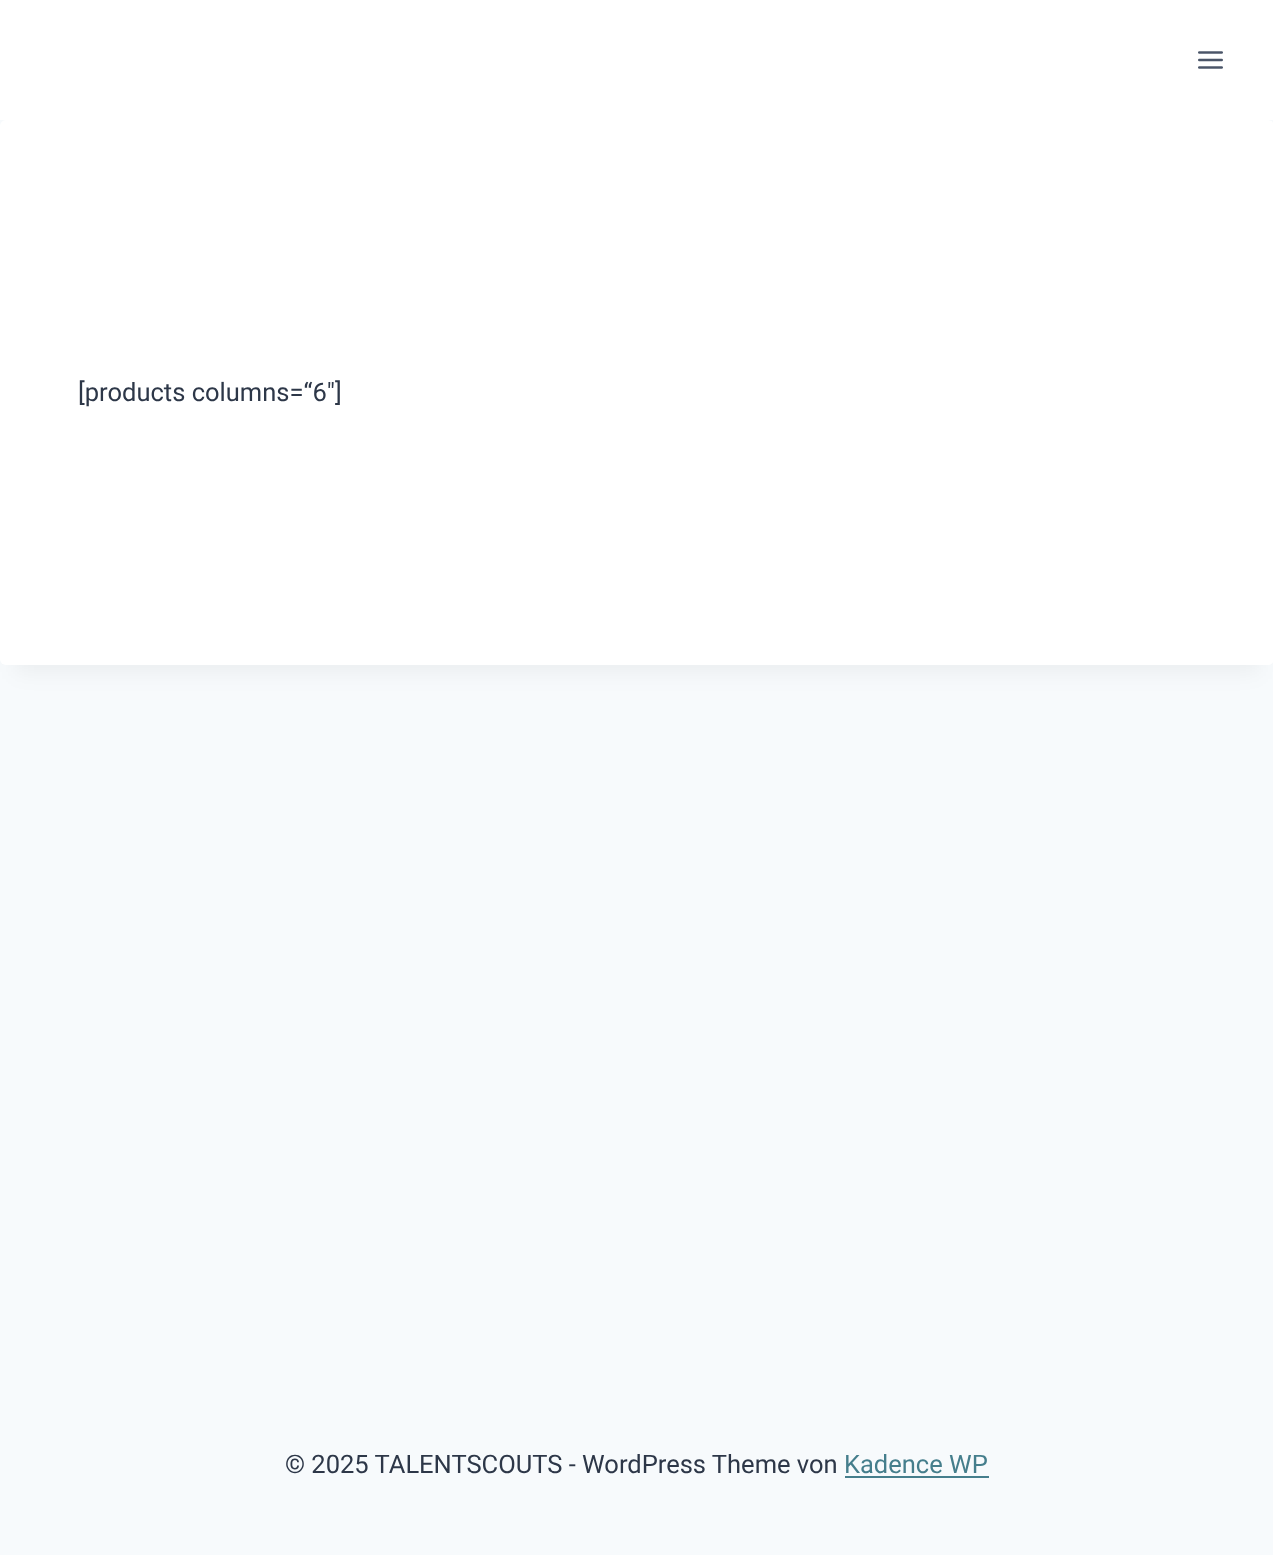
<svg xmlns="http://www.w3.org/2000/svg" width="1273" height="1555">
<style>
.a{font:25.5px Roboto;fill:#2d3748}
.b{font:25.5px Roboto;fill:#457e8c}
</style>
<rect width="100%" height="100%" fill="#f7fafc"/>
<path fill="#fff" d="M0 0h1273v120H0z"/>
<image href="1.png" x="1198" y="51" width="25" height="18"/>
<path fill="#0000000d" filter="blur(11px)" d="M15 158h1244v514H15z"/>
<rect fill="#fff" y="120" width="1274" height="545" rx="6"/>
<path fill="#457e8c" d="M845 1476h144v2H845z"/>
<text class="a" x="78" y="401">[products columns=“6″]</text>
<text class="a" x="285" y="1473">© 2025 TALENTSCOUTS - WordPress Theme von</text>
<text class="b" x="844" y="1473">Kadence WP</text>
</svg>
